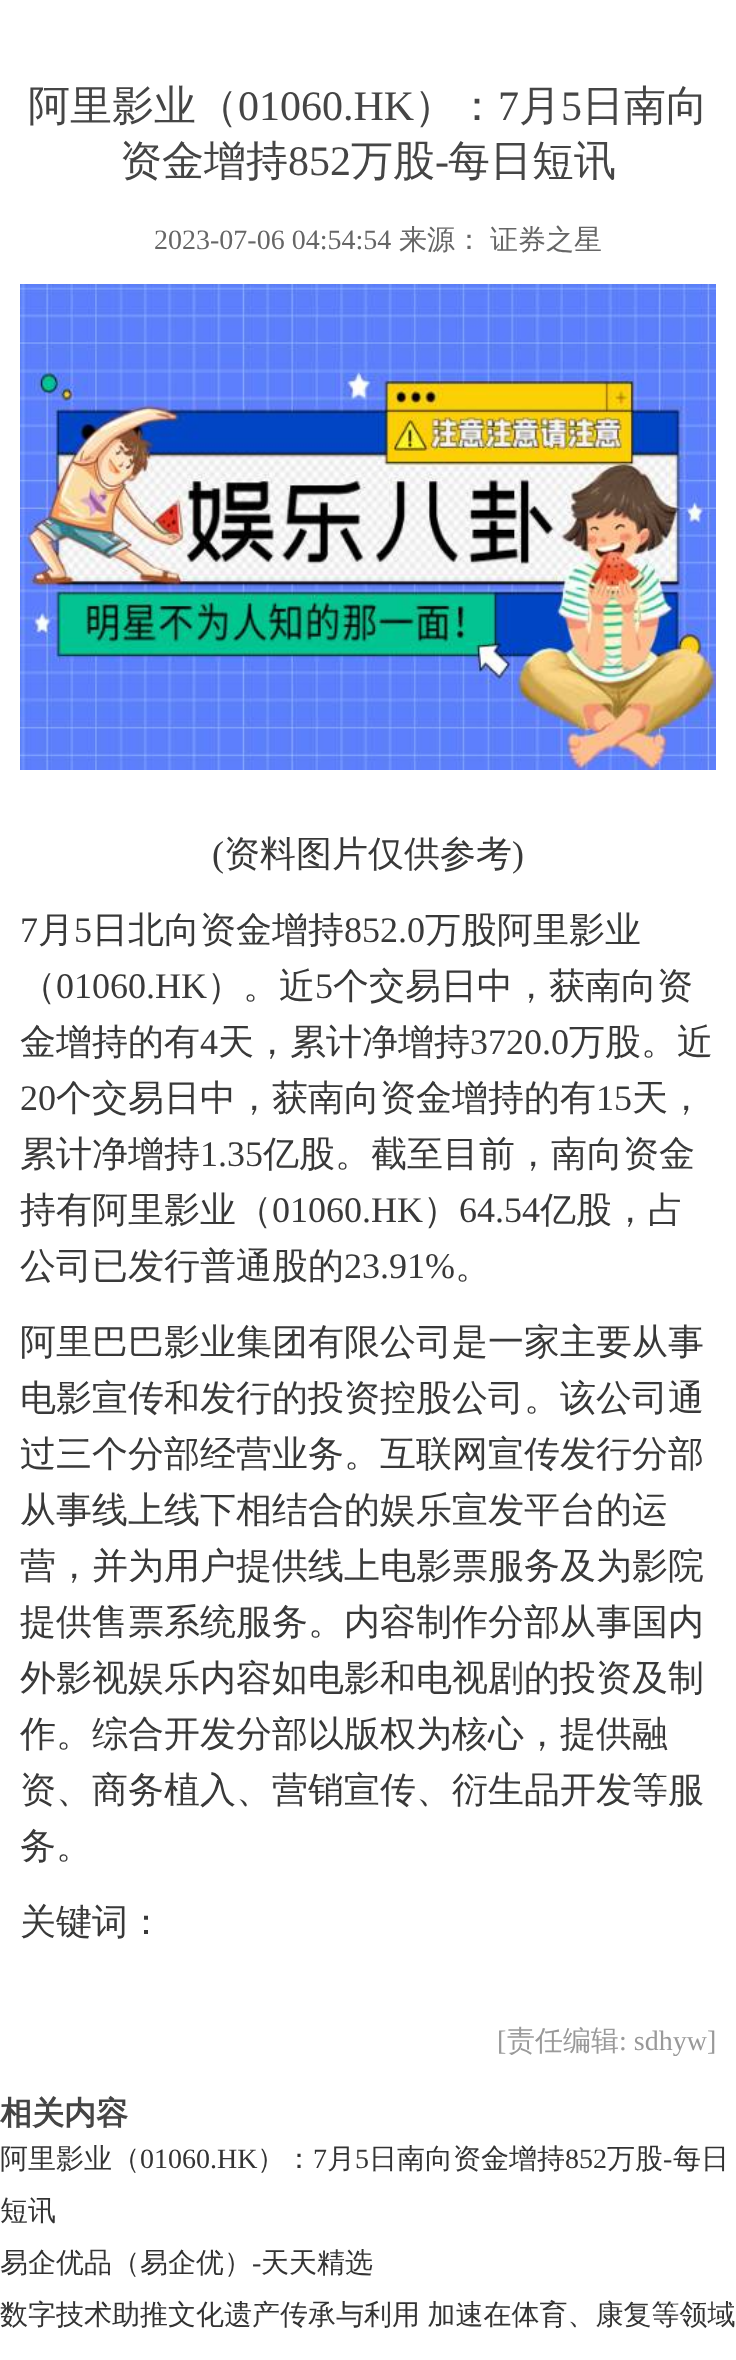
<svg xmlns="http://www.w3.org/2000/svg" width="736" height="2360">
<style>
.a{font:500 42px WenQuanYi Zen Hei;fill:#454545}
.b{font:42px Liberation Serif;fill:#454545}
.c{font:28px Liberation Serif;fill:#666}
.d{font:500 28px WenQuanYi Zen Hei;fill:#666}
.e{font:36px Liberation Serif;fill:#393939}
.f{font:500 36px WenQuanYi Zen Hei;fill:#393939}
.g{font:28px Liberation Serif;fill:#999}
.h{font:500 28px WenQuanYi Zen Hei;fill:#999}
.i{font:bold 32px WenQuanYi Zen Hei;fill:#454545}
.j{font:500 28px WenQuanYi Zen Hei;fill:#333}
.k{font:28px Liberation Serif;fill:#333}
</style>
<rect width="100%" height="100%" fill="#fff"/>
<image href="1.png" x="20" y="284" width="696" height="486"/>
<text class="a" x="28" y="120">阿里影业（</text>
<text class="b" x="238" y="120">01060.HK</text>
<text class="a" x="414" y="120">）：</text>
<text class="b" x="498" y="120">7</text>
<text class="a" x="519" y="120">月</text>
<text class="b" x="561" y="120">5</text>
<text class="a" x="582" y="120">日南向</text>
<text class="a" x="120" y="175">资金增持</text>
<text class="b" x="288" y="175">852</text>
<text class="a" x="351" y="175">万股</text>
<text class="b" x="435" y="175">-</text>
<text class="a" x="448" y="175">每日短讯</text>
<text class="c" x="154" y="249">2023-07-06 04:54:54</text>
<text class="d" x="399" y="249">来源：</text>
<text class="d" x="490" y="249">证券之星</text>
<text class="e" x="212" y="866">(</text>
<text class="f" x="224" y="866">资料图片仅供参考</text>
<text class="e" x="512" y="866">)</text>
<text class="e" x="20" y="942">7</text>
<text class="f" x="38" y="942">月</text>
<text class="e" x="74" y="942">5</text>
<text class="f" x="92" y="942">日北向资金增持</text>
<text class="e" x="344" y="942">852.0</text>
<text class="f" x="425" y="942">万股阿里影业</text>
<text class="f" x="20" y="998">（</text>
<text class="e" x="56" y="998">01060.HK</text>
<text class="f" x="207" y="998">）。近</text>
<text class="e" x="315" y="998">5</text>
<text class="f" x="333" y="998">个交易日中，获南向资</text>
<text class="f" x="20" y="1054">金增持的有</text>
<text class="e" x="200" y="1054">4</text>
<text class="f" x="218" y="1054">天，累计净增持</text>
<text class="e" x="470" y="1054">3720.0</text>
<text class="f" x="569" y="1054">万股。近</text>
<text class="e" x="20" y="1110">20</text>
<text class="f" x="56" y="1110">个交易日中，获南向资金增持的有</text>
<text class="e" x="596" y="1110">15</text>
<text class="f" x="632" y="1110">天，</text>
<text class="f" x="20" y="1166">累计净增持</text>
<text class="e" x="200" y="1166">1.35</text>
<text class="f" x="263" y="1166">亿股。截至目前，南向资金</text>
<text class="f" x="20" y="1222">持有阿里影业（</text>
<text class="e" x="272" y="1222">01060.HK</text>
<text class="f" x="423" y="1222">）</text>
<text class="e" x="459" y="1222">64.54</text>
<text class="f" x="540" y="1222">亿股，占</text>
<text class="f" x="20" y="1278">公司已发行普通股的</text>
<text class="e" x="344" y="1278">23.91%</text>
<text class="f" x="455" y="1278">。</text>
<text class="f" x="20" y="1354">阿里巴巴影业集团有限公司是一家主要从事</text>
<text class="f" x="20" y="1410">电影宣传和发行的投资控股公司。该公司通</text>
<text class="f" x="20" y="1466">过三个分部经营业务。互联网宣传发行分部</text>
<text class="f" x="20" y="1522">从事线上线下相结合的娱乐宣发平台的运</text>
<text class="f" x="20" y="1578">营，并为用户提供线上电影票服务及为影院</text>
<text class="f" x="20" y="1634">提供售票系统服务。内容制作分部从事国内</text>
<text class="f" x="20" y="1690">外影视娱乐内容如电影和电视剧的投资及制</text>
<text class="f" x="20" y="1746">作。综合开发分部以版权为核心，提供融</text>
<text class="f" x="20" y="1802">资、商务植入、营销宣传、衍生品开发等服</text>
<text class="f" x="20" y="1858">务。</text>
<text class="f" x="20" y="1934">关键词：</text>
<text class="g" x="497" y="2050">[</text>
<text class="h" x="507" y="2050">责任编辑</text>
<text class="g" x="619" y="2050">: sdhyw]</text>
<text class="i" x="0" y="2124">相关内容</text>
<text class="j" x="0" y="2168">阿里影业（</text>
<text class="k" x="140" y="2168">01060.HK</text>
<text class="j" x="257" y="2168">）：</text>
<text class="k" x="313" y="2168">7</text>
<text class="j" x="327" y="2168">月</text>
<text class="k" x="355" y="2168">5</text>
<text class="j" x="369" y="2168">日南向资金增持</text>
<text class="k" x="565" y="2168">852</text>
<text class="j" x="607" y="2168">万股</text>
<text class="k" x="663" y="2168">-</text>
<text class="j" x="673" y="2168">每日</text>
<text class="j" x="0" y="2220">短讯</text>
<text class="j" x="0" y="2272">易企优品（易企优）</text>
<text class="k" x="252" y="2272">-</text>
<text class="j" x="261" y="2272">天天精选</text>
<text class="j" x="0" y="2324" word-spacing="-1">数字技术助推文化遗产传承与利用 加速在体育、康复等领域</text>
</svg>
